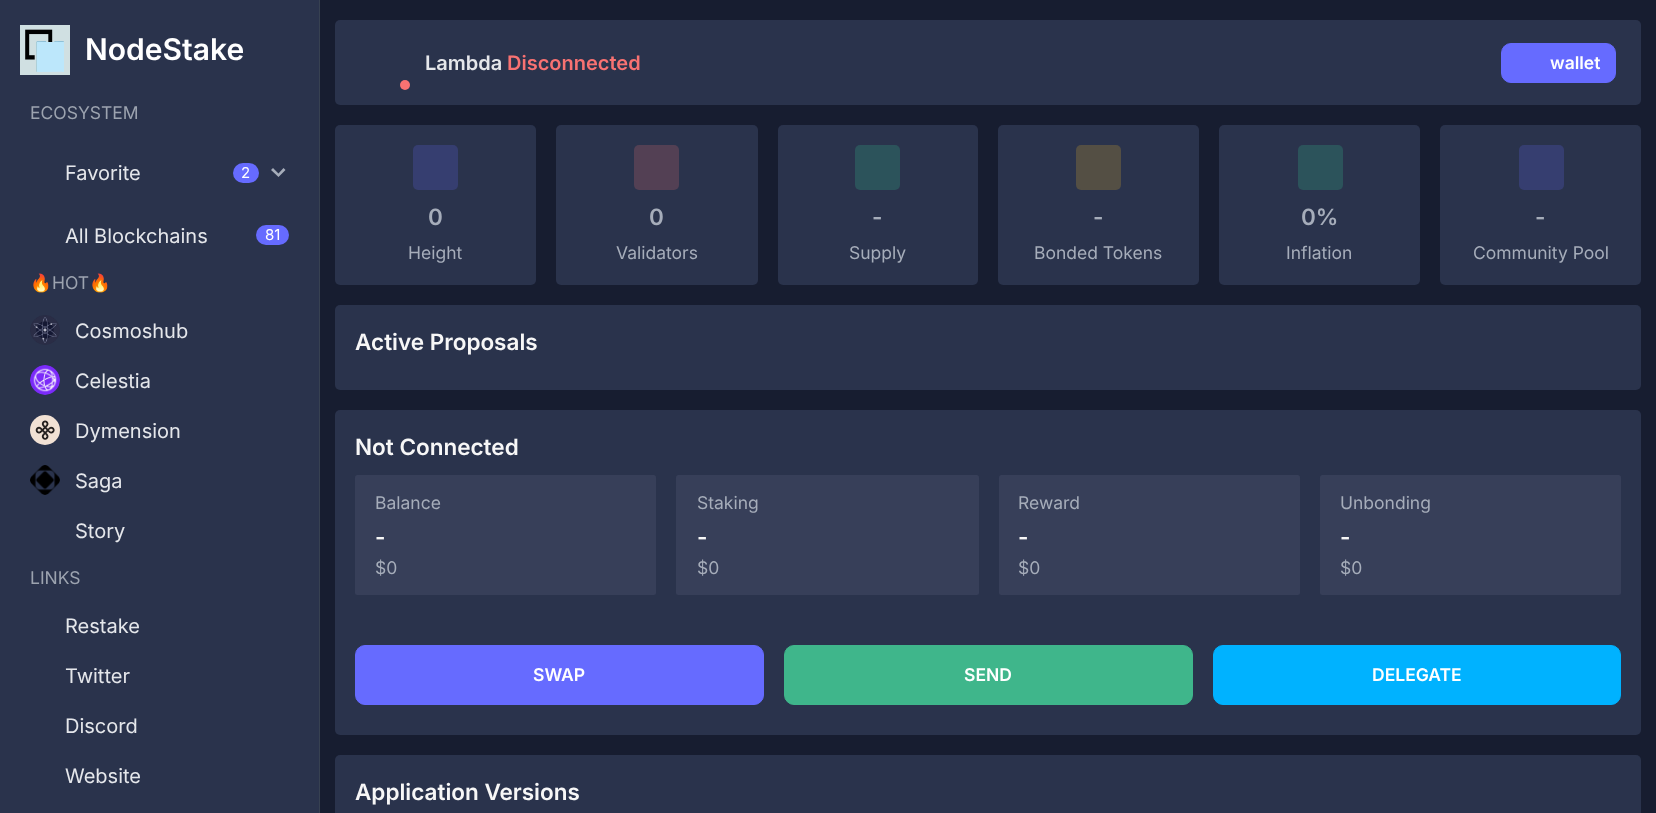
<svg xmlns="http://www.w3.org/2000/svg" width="1656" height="813">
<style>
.a{font:600 30px Inter;fill:#fff}
.b{font:17.5px Inter;fill:#9ca3af}
.c{font:20px Inter;fill:#e5e7eb}
.d{font:15px Inter;fill:#fff}
.e{font:17.5px Noto Color Emoji;fill:#9ca3af}
.f{font:600 20px Inter;fill:#e5e7eb}
.g{font:600 20px Inter;fill:#f87272}
.h{font:600 17.5px Inter;fill:#fff}
.i{font:600 22.5px Inter;fill:#a6adba}
.j{font:17.5px Inter;fill:#a6adba}
.k{font:600 22.5px Inter;fill:#f7f7f7}
</style>
<rect width="100%" height="100%" fill="#171d30"/>
<path fill="#2a334c" d="M0 0h319v813H0z"/>
<path fill="#374151" d="M319 0h1v813H319z"/>
<image href="1.png" x="20" y="25" width="50" height="50"/>
<rect fill="#666bff" x="233" y="163" width="26" height="20" rx="10"/>
<path fill="#a6adba" d="M273 168l-2 2l7.5 7l7-7l-2-2l-5 5.5z"/>
<rect fill="#666bff" x="256" y="225" width="33" height="20" rx="10"/>
<image href="2.png" x="30" y="315" width="30" height="30"/>
<image href="3.png" x="30" y="365" width="30" height="30"/>
<image href="4.png" x="30" y="415" width="30" height="30"/>
<image href="5.png" x="30" y="465" width="30" height="30"/>
<rect fill="#2a334c" x="335" y="20" width="1306" height="85" rx="5"/>
<circle fill="#f87272" cx="405" cy="85" r="5"/>
<rect fill="#666bff" stroke="#666bff" x="1501.5" y="43.5" width="114" height="39" rx="9.5"/>
<rect fill="#2a334c" x="335" y="125" width="201" height="160" rx="5"/>
<rect fill="#363e70" x="413" y="145" width="45" height="45" rx="5"/>
<rect fill="#2a334c" x="556" y="125" width="202" height="160" rx="5"/>
<rect fill="#534054" x="634" y="145" width="45" height="45" rx="5"/>
<rect fill="#2a334c" x="778" y="125" width="200" height="160" rx="5"/>
<rect fill="#2c535b" x="855" y="145" width="45" height="45" rx="5"/>
<rect fill="#2a334c" x="998" y="125" width="201" height="160" rx="5"/>
<rect fill="#544f44" x="1076" y="145" width="45" height="45" rx="5"/>
<rect fill="#2a334c" x="1219" y="125" width="201" height="160" rx="5"/>
<rect fill="#2c535b" x="1298" y="145" width="45" height="45" rx="5"/>
<rect fill="#2a334c" x="1440" y="125" width="201" height="160" rx="5"/>
<rect fill="#363e70" x="1519" y="145" width="45" height="45" rx="5"/>
<rect fill="#2a334c" x="335" y="305" width="1306" height="85" rx="5"/>
<rect fill="#2a334c" x="335" y="410" width="1306" height="325" rx="5"/>
<rect fill="#373f59" x="355" y="475" width="301" height="120" rx="2.5"/>
<rect fill="#373f59" x="676" y="475" width="303" height="120" rx="2.5"/>
<rect fill="#373f59" x="999" y="475" width="301" height="120" rx="2.5"/>
<rect fill="#373f59" x="1320" y="475" width="301" height="120" rx="2.5"/>
<rect fill="#666bff" stroke="#666bff" x="355.5" y="645.5" width="408" height="59" rx="9.5"/>
<rect fill="#3fb68b" stroke="#3fb68b" x="784.5" y="645.5" width="408" height="59" rx="9.5"/>
<rect fill="#00b2ff" stroke="#00b2ff" x="1213.5" y="645.5" width="407" height="59" rx="9.5"/>
<rect fill="#2a334c" x="335" y="755" width="1306" height="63" rx="5"/>
<text class="a" x="85" y="60">NodeStake</text>
<text class="b" x="30" y="119">ECOSYSTEM</text>
<text class="c" x="65" y="180">Favorite</text>
<text class="d" x="241" y="178">2</text>
<text class="c" x="65" y="243">All Blockchains</text>
<text class="d" x="265" y="240">81</text>
<text class="e" x="30" y="289">🔥</text>
<text class="b" x="52" y="289">HOT</text>
<text class="e" x="89" y="289">🔥</text>
<text class="c" x="75" y="338">Cosmoshub</text>
<text class="c" x="75" y="388">Celestia</text>
<text class="c" x="75" y="438">Dymension</text>
<text class="c" x="75" y="488">Saga</text>
<text class="c" x="75" y="538">Story</text>
<text class="b" x="30" y="584">LINKS</text>
<text class="c" x="65" y="633">Restake</text>
<text class="c" x="65" y="683">Twitter</text>
<text class="c" x="65" y="733">Discord</text>
<text class="c" x="65" y="783">Website</text>
<text class="f" x="425" y="70">Lambda</text>
<text class="g" x="507" y="70">Disconnected</text>
<text class="h" x="1550" y="69">wallet</text>
<text class="i" x="428" y="225">0</text>
<text class="j" x="408" y="259">Height</text>
<text class="i" x="649" y="225">0</text>
<text class="j" x="616" y="259">Validators</text>
<text class="i" x="872" y="225">-</text>
<text class="j" x="849" y="259">Supply</text>
<text class="i" x="1093" y="225">-</text>
<text class="j" x="1034" y="259">Bonded Tokens</text>
<text class="i" x="1301" y="225">0%</text>
<text class="j" x="1286" y="259">Inflation</text>
<text class="i" x="1535" y="225">-</text>
<text class="j" x="1473" y="259">Community Pool</text>
<text class="k" x="355" y="350">Active Proposals</text>
<text class="k" x="355" y="455">Not Connected</text>
<text class="j" x="375" y="509">Balance</text>
<text class="k" x="375" y="545">-</text>
<text class="j" x="375" y="574">$0</text>
<text class="j" x="697" y="509">Staking</text>
<text class="k" x="697" y="545">-</text>
<text class="j" x="697" y="574">$0</text>
<text class="j" x="1018" y="509">Reward</text>
<text class="k" x="1018" y="545">-</text>
<text class="j" x="1018" y="574">$0</text>
<text class="j" x="1340" y="509">Unbonding</text>
<text class="k" x="1340" y="545">-</text>
<text class="j" x="1340" y="574">$0</text>
<text class="h" x="533" y="681">SWAP</text>
<text class="h" x="964" y="681">SEND</text>
<text class="h" x="1372" y="681">DELEGATE</text>
<text class="k" x="355" y="800">Application Versions</text>
</svg>
